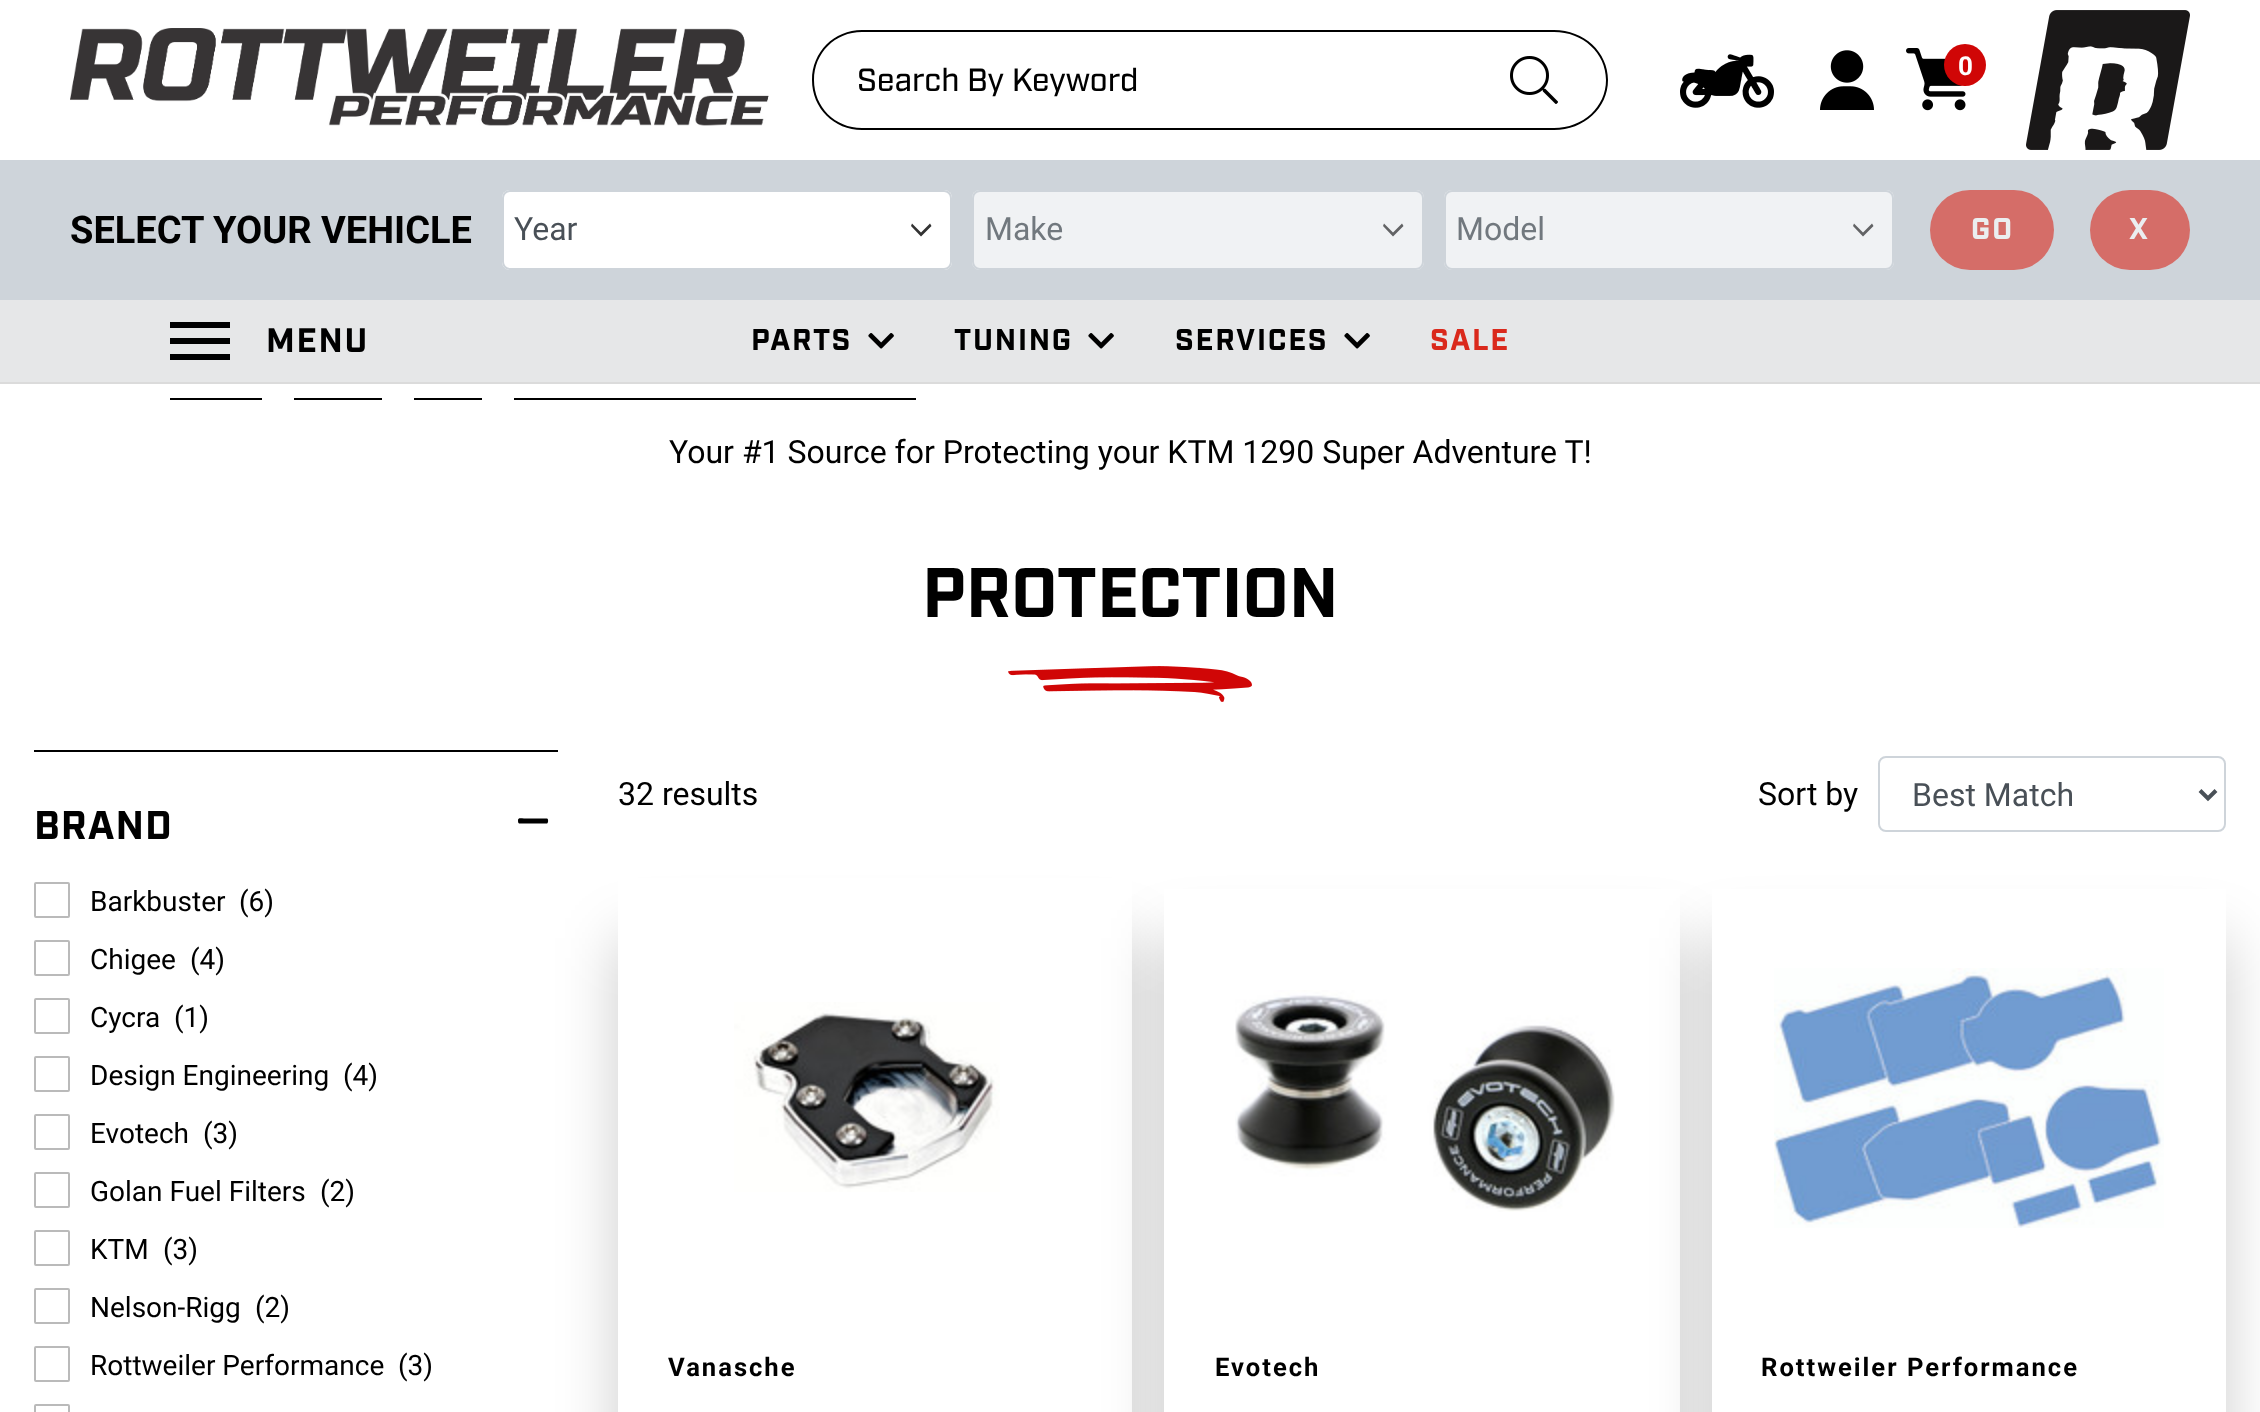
<svg xmlns="http://www.w3.org/2000/svg" width="2260" height="1412">
<style>
.a{font:500 32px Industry;fill:#000}
.b{font:bold 26px Roboto;fill:#fff}
.c{font:bold 38px Roboto;fill:#000}
.d{font:32px Roboto;fill:#495057}
.e{font:32px Roboto;fill:#71787e}
.f{font:bold 30px Industry;letter-spacing:2px;fill:#ebeef0}
.g{font:bold 34px Industry;letter-spacing:1.75px;fill:#000}
.h{font:bold 30px Industry;letter-spacing:1.75px;fill:#000}
.i{font:bold 30px Industry;letter-spacing:1.75px;fill:#da291c}
.j{font:32px Roboto;fill:#000}
.k{font:bold 70px Industry;fill:#000}
.l{font:bold 40px Industry;letter-spacing:1px;fill:#000}
.m{font:28px Roboto;fill:#000}
.n{font:bold 25.6px Roboto;letter-spacing:2px;fill:#000}
</style>
<defs>
<clipPath id="clip1"><path d="M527 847h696v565h-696zm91 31h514v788h-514z" clip-rule="evenodd"/></clipPath>
</defs>
<rect width="100%" height="100%" fill="#fff"/>
<image href="1.png" x="70" y="28" width="699" height="98"/>
<path fill="#000" fill-rule="evenodd" d="M862 30h638v100h-638c-28 0-50-22-50-50c0-28 22-50 50-50zm0 2h638v96h-638c-27 0-48-21-48-48c0-27 21-48 48-48z"/>
<path fill="#000" fill-rule="evenodd" d="M1500 30h54c30 0 54 22 54 50c0 28-24 50-54 50h-54zm0 2h54c29 0 52 21 52 48c0 27-23 48-52 48h-54z"/>
<image href="2.png" x="1510" y="56" width="48" height="48"/>
<image href="3.png" x="1680" y="54" width="94" height="54"/>
<image href="4.png" x="1820" y="50" width="54" height="60"/>
<image href="5.png" x="1906" y="48" width="60" height="63"/>
<circle fill="#d00606" cx="1965" cy="65" r="21"/>
<image href="6.png" x="2026" y="10" width="164" height="140"/>
<path fill="#ced4da" d="M0 160h2260v140H0z"/>
<rect fill="#fff" x="502" y="190" width="450" height="80" rx="8"/>
<path fill="#333" fill-rule="evenodd" d="M921.5 236l10-10l-1.5-2.5l-9 9l-9-9l-1 2.5l10 10.5z"/>
<rect fill="none" stroke="#ced4da" stroke-width="2" x="503" y="191" width="448" height="78" rx="7"/>
<rect fill="#f0f2f4" x="972" y="190" width="452" height="80" rx="8"/>
<path fill="#626365" fill-rule="evenodd" d="M1393.5 236l10-10l-1.5-2.5l-9 9l-9-9l-1 2.5l10 10.5z"/>
<rect fill="none" stroke="#ced4da" stroke-width="2" x="973" y="191" width="450" height="78" rx="7"/>
<rect fill="#f0f2f4" x="1444" y="190" width="450" height="80" rx="8"/>
<path fill="#626365" fill-rule="evenodd" d="M1863.5 236l10-10l-1.5-2.5l-9 9l-9-9l-1 2.5l10 10.5z"/>
<rect fill="none" stroke="#ced4da" stroke-width="2" x="1445" y="191" width="448" height="78" rx="7"/>
<rect fill="#d56d68" x="1930" y="190" width="124" height="80" rx="40"/>
<rect fill="#d56d68" x="2090" y="190" width="100" height="80" rx="40"/>
<path fill="#e6e7e8" d="M0 300h2260v82H0z"/>
<path fill="#dbdbdb" d="M0 382h2260v2H0z"/>
<path fill="#000" d="M170 338h60v6H170z"/>
<path fill="#000" d="M170 322h60v6H170z"/>
<path fill="#000" d="M170 354h60v6H170z"/>
<image href="7.png" x="868" y="333" width="26" height="16"/>
<image href="7.png" x="1088" y="333" width="26" height="16"/>
<image href="7.png" x="1344" y="333" width="26" height="16"/>
<path fill="#000" d="M170 398h92v2H170z"/>
<path fill="#000" d="M294 398h88v2H294z"/>
<path fill="#000" d="M414 398h68v2H414z"/>
<path fill="#000" d="M514 398h402v2H514z"/>
<image href="8.png" x="1008" y="666" width="244" height="36"/>
<path fill="#000" d="M34 750h524v2H34z"/>
<path fill="#000" d="M547 818.5c1.5 0 1.5 4.5 0 5h-23c-5 0-6 1-6-3c0-3 2.5-2 6-2z"/>
<rect fill="none" stroke="#bababa" stroke-width="2" x="35" y="883" width="34" height="34" rx="1"/>
<rect fill="none" stroke="#bababa" stroke-width="2" x="35" y="941" width="34" height="34" rx="1"/>
<rect fill="none" stroke="#bababa" stroke-width="2" x="35" y="999" width="34" height="34" rx="1"/>
<rect fill="none" stroke="#bababa" stroke-width="2" x="35" y="1057" width="34" height="34" rx="1"/>
<rect fill="none" stroke="#bababa" stroke-width="2" x="35" y="1115" width="34" height="34" rx="1"/>
<rect fill="none" stroke="#bababa" stroke-width="2" x="35" y="1173" width="34" height="34" rx="1"/>
<rect fill="none" stroke="#bababa" stroke-width="2" x="35" y="1231" width="34" height="34" rx="1"/>
<rect fill="none" stroke="#bababa" stroke-width="2" x="35" y="1289" width="34" height="34" rx="1"/>
<rect fill="none" stroke="#bababa" stroke-width="2" x="35" y="1347" width="34" height="34" rx="1"/>
<rect fill="none" stroke="#bababa" stroke-width="2" x="35" y="1405" width="34" height="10" rx="1"/>
<rect fill="none" stroke="#ced4da" stroke-width="2" x="1879" y="757" width="346" height="74" rx="7"/>
<path fill="none" stroke="#495057" stroke-width="4" d="M2200 790.5l8 8l8-8"/>
<g clip-path="url(#clip1)">
<path fill="#00000033" filter="blur(30px)" d="M618 938h514v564H618z"/>
</g>
<image href="9.png" x="734" y="1002" width="266" height="190"/>
<path fill="#00000033" filter="blur(30px)" d="M1164 938h516v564H1164z"/>
<path fill="#fff" d="M1164 889h516v523H1164z"/>
<image href="10.png" x="1235" y="990" width="380" height="222"/>
<path fill="#00000033" filter="blur(30px)" d="M1712 938h514v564H1712z"/>
<path fill="#fff" d="M1712 889h514v523H1712z"/>
<image href="11.png" x="1774" y="968" width="390" height="260"/>
<text class="a" x="857" y="91">Search By Keyword</text>
<text class="b" x="1958" y="75">0</text>
<text class="c" x="70" y="243">SELECT YOUR VEHICLE</text>
<text class="d" x="514" y="240">Year</text>
<text class="e" x="985" y="240">Make</text>
<text class="e" x="1456" y="240">Model</text>
<text class="f" x="1971" y="239">GO</text>
<text class="f" x="2129" y="239">X</text>
<text class="g" x="266" y="352">MENU</text>
<text class="h" x="751" y="350">PARTS</text>
<text class="h" x="954" y="350">TUNING</text>
<text class="h" x="1175" y="350">SERVICES</text>
<text class="i" x="1430" y="350">SALE</text>
<text class="j" x="669" y="463">Your #1 Source for Protecting your KTM 1290 Super Adventure T!</text>
<text class="k" x="922" y="617">PROTECTION</text>
<text class="l" x="34" y="839">BRAND</text>
<text class="m" x="90" y="911">Barkbuster</text>
<text class="m" x="239" y="911">(6)</text>
<text class="m" x="90" y="969">Chigee</text>
<text class="m" x="190" y="969">(4)</text>
<text class="m" x="90" y="1027">Cycra</text>
<text class="m" x="174" y="1027">(1)</text>
<text class="m" x="90" y="1085">Design Engineering</text>
<text class="m" x="343" y="1085">(4)</text>
<text class="m" x="90" y="1143">Evotech</text>
<text class="m" x="203" y="1143">(3)</text>
<text class="m" x="90" y="1201">Golan Fuel Filters</text>
<text class="m" x="320" y="1201">(2)</text>
<text class="m" x="90" y="1259">KTM</text>
<text class="m" x="163" y="1259">(3)</text>
<text class="m" x="90" y="1317">Nelson-Rigg</text>
<text class="m" x="255" y="1317">(2)</text>
<text class="m" x="90" y="1375">Rottweiler Performance</text>
<text class="m" x="398" y="1375">(3)</text>
<text class="j" x="618" y="805">32 results</text>
<text class="j" x="1758" y="805">Sort by</text>
<text class="d" x="1912" y="806">Best Match</text>
<text class="n" x="668" y="1376">Vanasche</text>
<text class="n" x="1215" y="1376">Evotech</text>
<text class="n" x="1761" y="1376">Rottweiler Performance</text>
</svg>
